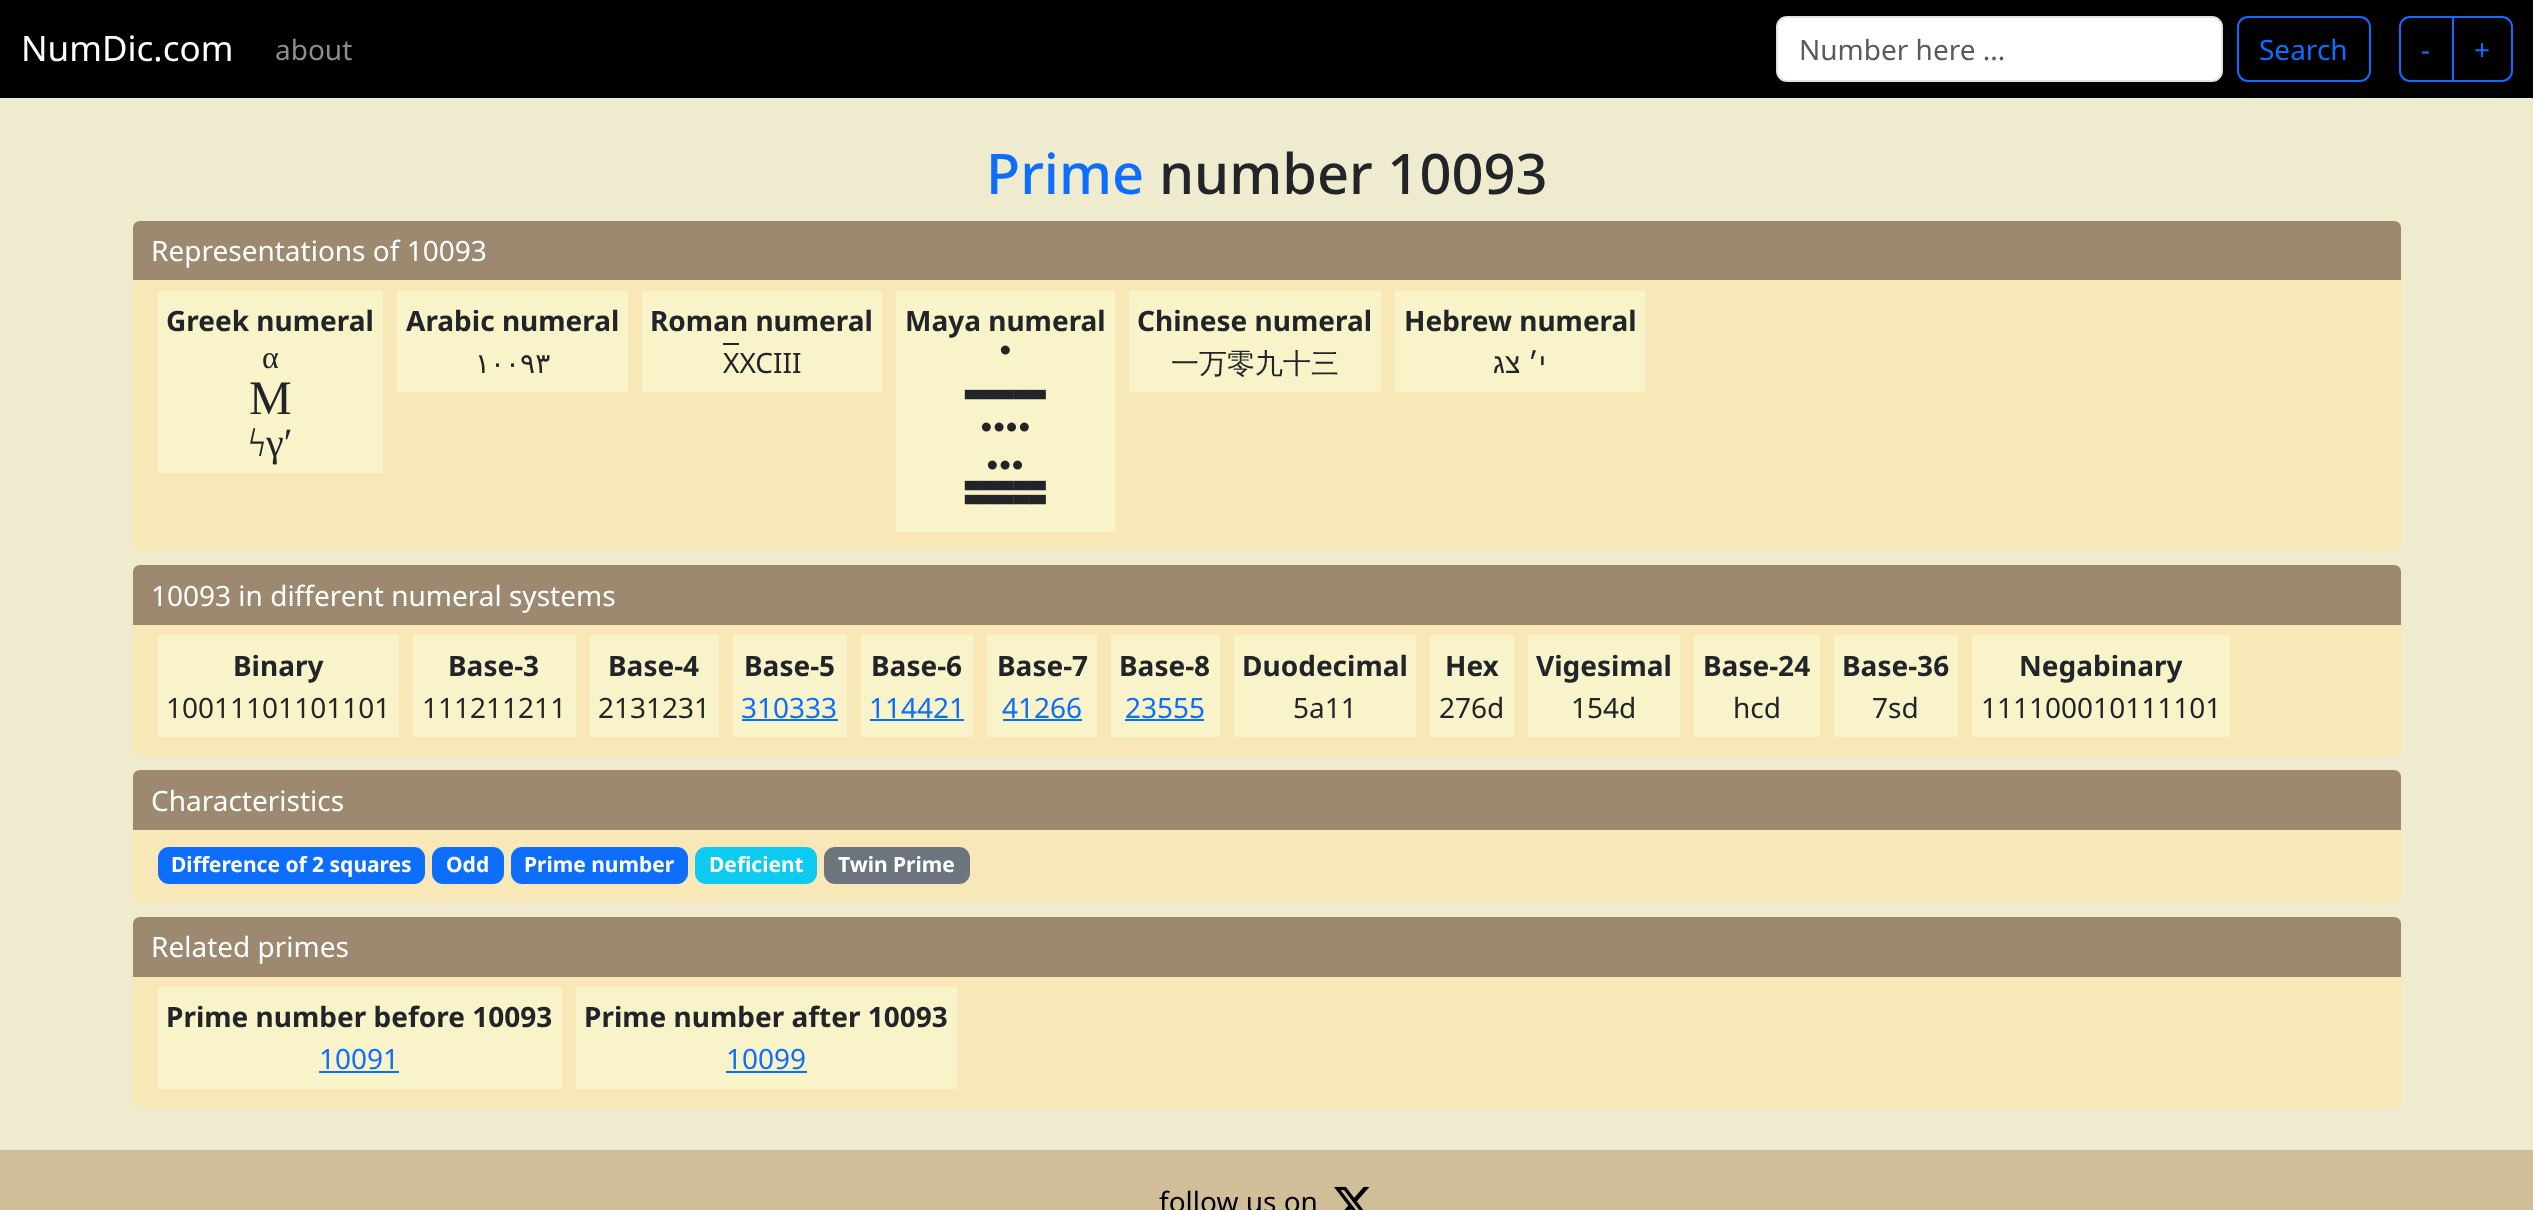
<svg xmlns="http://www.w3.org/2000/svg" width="2533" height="1210">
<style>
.a{font:35px Noto Sans;fill:#fff}
.b{font:28px Noto Sans;fill:#8c8c8c}
.c{font:28px Noto Sans;fill:#595c5f}
.d{font:28px Noto Sans;fill:#0d6efd}
.e{font:500 56px Noto Sans;fill:#0d6efd}
.f{font:500 56px Noto Sans;fill:#212529}
.g{font:28px Noto Sans;fill:#fff}
.h{font:bold 28px Noto Sans;fill:#212529}
.i{font:32px Liberation Serif;fill:#212529}
.j{font:48px Liberation Serif;fill:#212529}
.k{font:40px Liberation Serif;fill:#212529}
.l{font:28px DejaVu Sans;fill:#212529}
.m{font:28px Noto Sans;fill:#212529}
.n{font:21px Liberation Sans;fill:#212529}
.o{font:21px DejaVu Sans;fill:#212529}
.p{font:500 28px WenQuanYi Zen Hei;fill:#212529}
.q{font:28px Liberation Sans;direction:rtl;fill:#212529}
.r{font:bold 21px Noto Sans;fill:#fff}
.s{font:28px Noto Sans;fill:#000}
</style>
<rect width="100%" height="100%" fill="#efebce"/>
<path fill="#000" d="M0 0h2533v98H0z"/>
<rect fill="#fff" stroke="#dee2e6" stroke-width="2" x="1777" y="17" width="445" height="64" rx="10"/>
<rect fill="none" stroke="#0d6efd" stroke-width="2" x="2238" y="17" width="132" height="64" rx="10"/>
<path fill="none" stroke="#0d6efd" stroke-width="2" d="M2410 17h43v64h-43c-5.5 0-10-4.5-10-10v-44c0-5.5 4.5-10 10-10z"/>
<path fill="none" stroke="#0d6efd" stroke-width="2" d="M2453 17h49c5.5 0 10 4.5 10 10v44c0 5.5-4.5 10-10 10h-49z"/>
<path fill="#f8e7b7" d="M133 221h2268v323c0 4-3 7-7 7h-2254c-4 0-7-3-7-7z"/>
<path fill="#9c8970" d="M140 221h2254c4 0 7 3 7 7v52h-2268v-52c0-4 3-7 7-7z"/>
<path fill="#f9f3c9" d="M158 291h225v182H158z"/>
<path fill="#f9f3c9" d="M397 291h231v101H397z"/>
<path fill="#f9f3c9" d="M642 291h240v101H642z"/>
<path fill="#212529" d="M723 343h16v2H723z"/>
<path fill="#f9f3c9" d="M896 291h219v241H896z"/>
<path fill="#f9f3c9" d="M1129 291h252v101H1129z"/>
<path fill="#f9f3c9" d="M1395 291h250v101H1395z"/>
<path fill="#f8e7b7" d="M133 565h2268v184c0 4-3 7-7 7h-2254c-4 0-7-3-7-7z"/>
<path fill="#9c8970" d="M140 565h2254c4 0 7 3 7 7v53h-2268v-53c0-4 3-7 7-7z"/>
<path fill="#f9f3c9" d="M158 635h241v102H158z"/>
<path fill="#f9f3c9" d="M413 635h163v102H413z"/>
<path fill="#f9f3c9" d="M590 635h129v102H590z"/>
<path fill="#f9f3c9" d="M733 635h114v102H733z"/>
<path fill="#0d6efd" d="M742 719h96v2H742z"/>
<path fill="#f9f3c9" d="M861 635h112v102H861z"/>
<path fill="#0d6efd" d="M870 719h94v2H870z"/>
<path fill="#f9f3c9" d="M987 635h110v102H987z"/>
<path fill="#0d6efd" d="M1003 719h79v2H1003z"/>
<path fill="#f9f3c9" d="M1111 635h109v102H1111z"/>
<path fill="#0d6efd" d="M1125 719h79v2H1125z"/>
<path fill="#f9f3c9" d="M1234 635h182v102H1234z"/>
<path fill="#f9f3c9" d="M1430 635h84v102H1430z"/>
<path fill="#f9f3c9" d="M1528 635h152v102H1528z"/>
<path fill="#f9f3c9" d="M1694 635h126v102H1694z"/>
<path fill="#f9f3c9" d="M1834 635h124v102H1834z"/>
<path fill="#f9f3c9" d="M1972 635h258v102H1972z"/>
<path fill="#f8e7b7" d="M133 770h2268v126c0 4-3 7-7 7h-2254c-4 0-7-3-7-7z"/>
<path fill="#9c8970" d="M140 770h2254c4 0 7 3 7 7v53h-2268v-53c0-4 3-7 7-7z"/>
<rect fill="#0d6efd" x="158" y="847" width="267" height="37" rx="11"/>
<rect fill="#0d6efd" x="432" y="847" width="72" height="37" rx="11"/>
<rect fill="#0d6efd" x="511" y="847" width="177" height="37" rx="11"/>
<rect fill="#0dcaf0" x="695" y="847" width="122" height="37" rx="11"/>
<rect fill="#6c757d" x="824" y="847" width="146" height="37" rx="11"/>
<path fill="#f8e7b7" d="M133 917h2268v184c0 4-3 7-7 7h-2254c-4 0-7-3-7-7z"/>
<path fill="#9c8970" d="M140 917h2254c4 0 7 3 7 7v53h-2268v-53c0-4 3-7 7-7z"/>
<path fill="#f9f3c9" d="M158 987h404v102H158z"/>
<path fill="#0d6efd" d="M319 1071h80v2H319z"/>
<path fill="#f9f3c9" d="M576 987h381v102H576z"/>
<path fill="#0d6efd" d="M726 1071h81v2H726z"/>
<path fill="#cfbe98" d="M0 1150h2533v60H0z"/>
<image href="1.png" x="1334" y="1186" width="36" height="24"/>
<text class="a" x="21" y="61">NumDic.com</text>
<text class="b" x="275" y="60">about</text>
<text class="c" x="1799" y="60">Number here ...</text>
<text class="d" x="2259" y="60">Search</text>
<text class="d" x="2421" y="60">-</text>
<text class="d" x="2474" y="60">+</text>
<text class="e" x="986" y="194">Prime</text>
<text class="f" x="1159" y="194">number 10093</text>
<text class="g" x="151" y="261">Representations of 10093</text>
<text class="h" x="166" y="331">Greek numeral</text>
<text class="i" x="262" y="368">α</text>
<text class="j" x="249" y="414">Μ</text>
<text class="k" x="248" y="456">ϟγʹ</text>
<text class="h" x="406" y="331">Arabic numeral</text>
<text class="l" x="475" y="373">١٠٠٩٣</text>
<text class="h" x="650" y="331">Roman numeral</text>
<text class="m" x="723" y="373">XXCIII</text>
<text class="h" x="905" y="331">Maya numeral</text>
<text class="n" x="999" y="356">●</text>
<text class="o" x="965" y="394">▃▃▃▃▃</text>
<text class="n" x="980" y="433">●●●●</text>
<text class="n" x="986" y="471">●●●</text>
<text class="o" x="965" y="485">▃▃▃▃▃</text>
<text class="o" x="965" y="499">▃▃▃▃▃</text>
<text class="h" x="1137" y="331">Chinese numeral</text>
<text class="p" x="1171" y="373">一万零九十三</text>
<text class="h" x="1404" y="331">Hebrew numeral</text>
<text class="q" x="1546" y="373">י׳ צג</text>
<text class="g" x="151" y="606">10093 in different numeral systems</text>
<text class="h" x="233" y="676">Binary</text>
<text class="m" x="166" y="718">10011101101101</text>
<text class="h" x="448" y="676">Base-3</text>
<text class="m" x="422" y="718">111211211</text>
<text class="h" x="608" y="676">Base-4</text>
<text class="m" x="598" y="718">2131231</text>
<text class="h" x="744" y="676">Base-5</text>
<text class="d" x="741" y="718">310333</text>
<text class="h" x="871" y="676">Base-6</text>
<text class="d" x="869" y="718">114421</text>
<text class="h" x="997" y="676">Base-7</text>
<text class="d" x="1002" y="718">41266</text>
<text class="h" x="1119" y="676">Base-8</text>
<text class="d" x="1125" y="718">23555</text>
<text class="h" x="1242" y="676">Duodecimal</text>
<text class="m" x="1293" y="718">5a11</text>
<text class="h" x="1445" y="676">Hex</text>
<text class="m" x="1439" y="718">276d</text>
<text class="h" x="1536" y="676">Vigesimal</text>
<text class="m" x="1571" y="718">154d</text>
<text class="h" x="1703" y="676">Base-24</text>
<text class="m" x="1733" y="718">hcd</text>
<text class="h" x="1842" y="676">Base-36</text>
<text class="m" x="1872" y="718">7sd</text>
<text class="h" x="2019" y="676">Negabinary</text>
<text class="m" x="1981" y="718">111100010111101</text>
<text class="g" x="151" y="811">Characteristics</text>
<text class="r" x="171" y="872">Difference of 2 squares</text>
<text class="r" x="446" y="872">Odd</text>
<text class="r" x="524" y="872">Prime number</text>
<text class="r" x="709" y="872">Deficient</text>
<text class="r" x="838" y="872">Twin Prime</text>
<text class="g" x="151" y="957">Related primes</text>
<text class="h" x="166" y="1027">Prime number before 10093</text>
<text class="d" x="319" y="1069">10091</text>
<text class="h" x="584" y="1027">Prime number after 10093</text>
<text class="d" x="726" y="1069">10099</text>
<text class="s" x="1159" y="1212">follow us on</text>
</svg>
